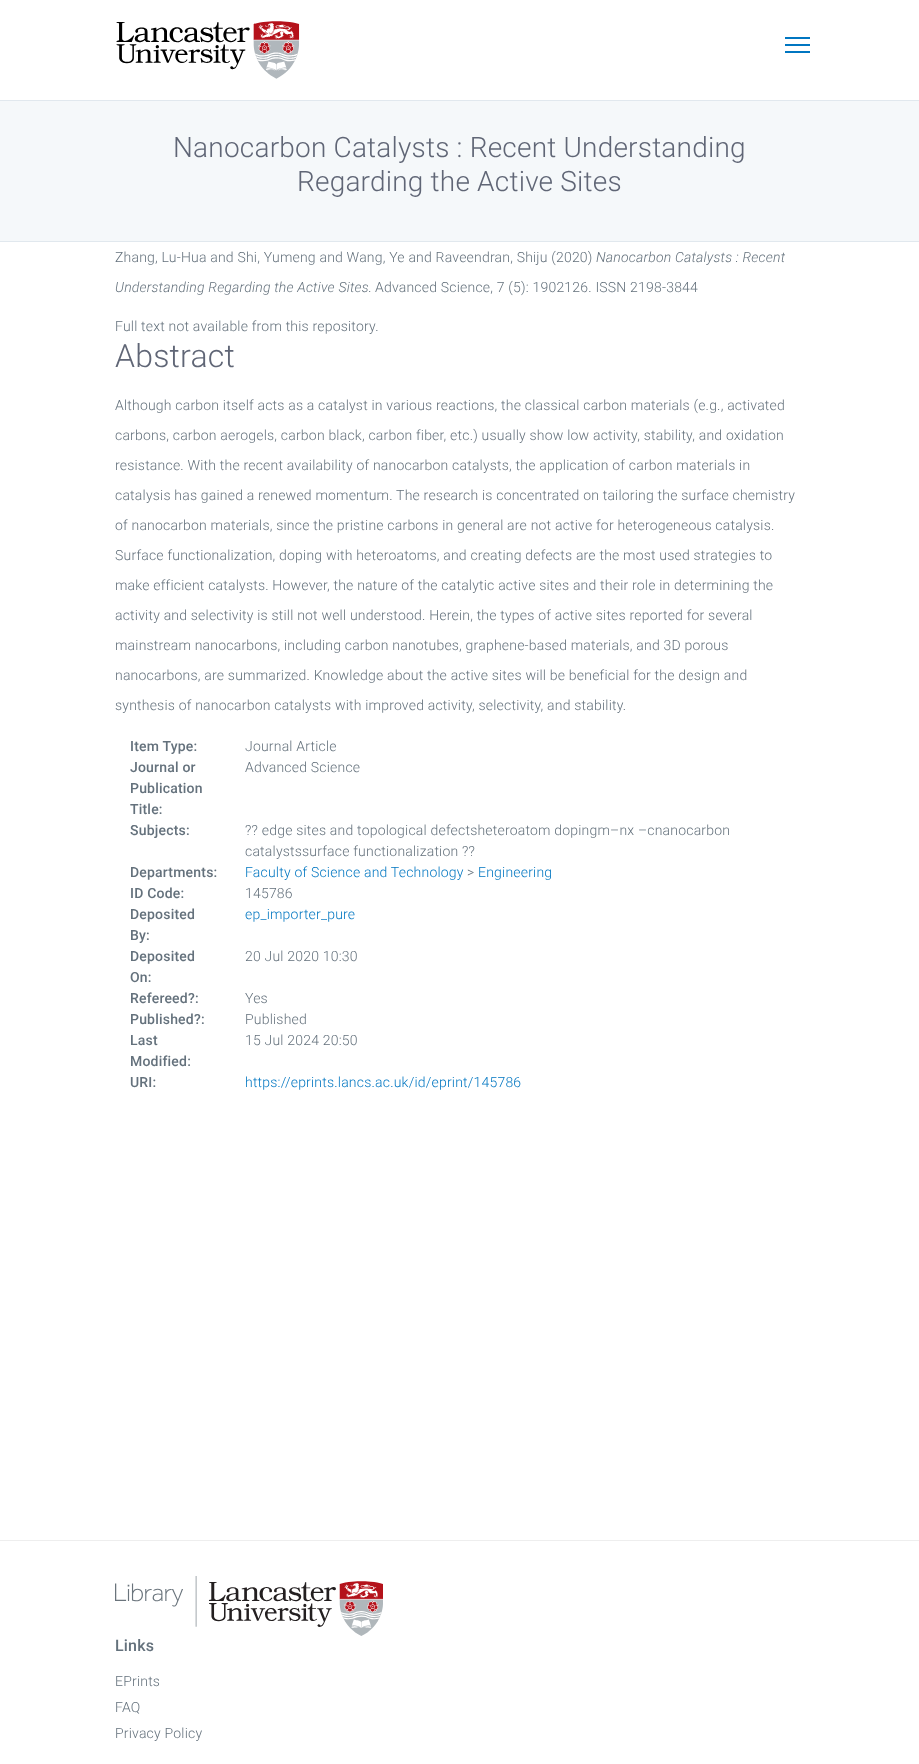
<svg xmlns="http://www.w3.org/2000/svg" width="919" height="1764">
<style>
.a{font:300 28px Roboto;letter-spacing:0.2px;fill:#606676}
.b{font:300 14px Roboto;letter-spacing:0.2px;fill:#64717c}
.c{font:italic 300 14px Roboto;letter-spacing:0.2px;fill:#64717c}
.d{font:300 32px Roboto;letter-spacing:0.2px;fill:#606676}
.e{font:500 14px Roboto;letter-spacing:0.2px;fill:#64717c}
.f{font:300 14px Roboto;letter-spacing:0.2px;fill:#0076c1}
.g{font:500 16px Roboto;letter-spacing:0.2px;fill:#64717c}
</style>
<rect width="100%" height="100%" fill="#fff"/>
<image href="1.png" x="116" y="21" width="184" height="58"/>
<path fill="#0076c1" d="M785 44h25v2H785z"/>
<path fill="#0076c1" d="M785 37h25v2H785z"/>
<path fill="#0076c1" d="M785 51h25v2H785z"/>
<path fill="#f5f8fa" d="M0 101h919v140H0z"/>
<path fill="#e1e8ee" d="M0 100h919v1H0z"/>
<path fill="#e1e8ee" d="M0 241h919v1H0z"/>
<path fill="#eee" d="M0 1540h919v1H0z"/>
<image href="2.png" x="115" y="1576" width="268" height="60"/>
<text class="a" x="173" y="157">Nanocarbon Catalysts : Recent Understanding</text>
<text class="a" x="297" y="191">Regarding the Active Sites</text>
<text class="b" x="115" y="262">Zhang, Lu-Hua and Shi, Yumeng and Wang, Ye and Raveendran, Shiju (2020)</text>
<text class="c" x="596" y="262">Nanocarbon Catalysts : Recent</text>
<text class="c" x="115" y="292">Understanding Regarding the Active Sites.</text>
<text class="b" x="375" y="292">Advanced Science, 7 (5): 1902126. ISSN 2198-3844</text>
<text class="b" x="115" y="331">Full text not available from this repository.</text>
<text class="d" x="115" y="367">Abstract</text>
<text class="b" x="115" y="410">Although carbon itself acts as a catalyst in various reactions, the classical carbon materials (e.g., activated</text>
<text class="b" x="115" y="440">carbons, carbon aerogels, carbon black, carbon fiber, etc.) usually show low activity, stability, and oxidation</text>
<text class="b" x="115" y="470">resistance. With the recent availability of nanocarbon catalysts, the application of carbon materials in</text>
<text class="b" x="115" y="500">catalysis has gained a renewed momentum. The research is concentrated on tailoring the surface chemistry</text>
<text class="b" x="115" y="530">of nanocarbon materials, since the pristine carbons in general are not active for heterogeneous catalysis.</text>
<text class="b" x="115" y="560">Surface functionalization, doping with heteroatoms, and creating defects are the most used strategies to</text>
<text class="b" x="115" y="590">make efficient catalysts. However, the nature of the catalytic active sites and their role in determining the</text>
<text class="b" x="115" y="620">activity and selectivity is still not well understood. Herein, the types of active sites reported for several</text>
<text class="b" x="115" y="650">mainstream nanocarbons, including carbon nanotubes, graphene‐based materials, and 3D porous</text>
<text class="b" x="115" y="680">nanocarbons, are summarized. Knowledge about the active sites will be beneficial for the design and</text>
<text class="b" x="115" y="710">synthesis of nanocarbon catalysts with improved activity, selectivity, and stability.</text>
<text class="e" x="130" y="751">Item Type:</text>
<text class="b" x="245" y="751">Journal Article</text>
<text class="e" x="130" y="772">Journal or</text>
<text class="e" x="130" y="793">Publication</text>
<text class="e" x="130" y="814">Title:</text>
<text class="b" x="245" y="772">Advanced Science</text>
<text class="e" x="130" y="835">Subjects:</text>
<text class="b" x="245" y="835">?? edge sites and topological defectsheteroatom dopingm–nx –cnanocarbon</text>
<text class="b" x="245" y="856">catalystssurface functionalization ??</text>
<text class="e" x="130" y="877">Departments:</text>
<text class="f" x="245" y="877">Faculty of Science and Technology</text>
<text class="b" x="467" y="877">&gt;</text>
<text class="f" x="478" y="877">Engineering</text>
<text class="e" x="130" y="898">ID Code:</text>
<text class="b" x="245" y="898">145786</text>
<text class="e" x="130" y="919">Deposited</text>
<text class="e" x="130" y="940">By:</text>
<text class="f" x="245" y="919">ep_importer_pure</text>
<text class="e" x="130" y="961">Deposited</text>
<text class="e" x="130" y="982">On:</text>
<text class="b" x="245" y="961">20 Jul 2020 10:30</text>
<text class="e" x="130" y="1003">Refereed?:</text>
<text class="b" x="245" y="1003">Yes</text>
<text class="e" x="130" y="1024">Published?:</text>
<text class="b" x="245" y="1024">Published</text>
<text class="e" x="130" y="1045">Last</text>
<text class="e" x="130" y="1066">Modified:</text>
<text class="b" x="245" y="1045">15 Jul 2024 20:50</text>
<text class="e" x="130" y="1087">URI:</text>
<text class="f" x="245" y="1087">https://eprints.lancs.ac.uk/id/eprint/145786</text>
<text class="g" x="115" y="1651">Links</text>
<text class="b" x="115" y="1686">EPrints</text>
<text class="b" x="115" y="1712">FAQ</text>
<text class="b" x="115" y="1738">Privacy Policy</text>
</svg>
